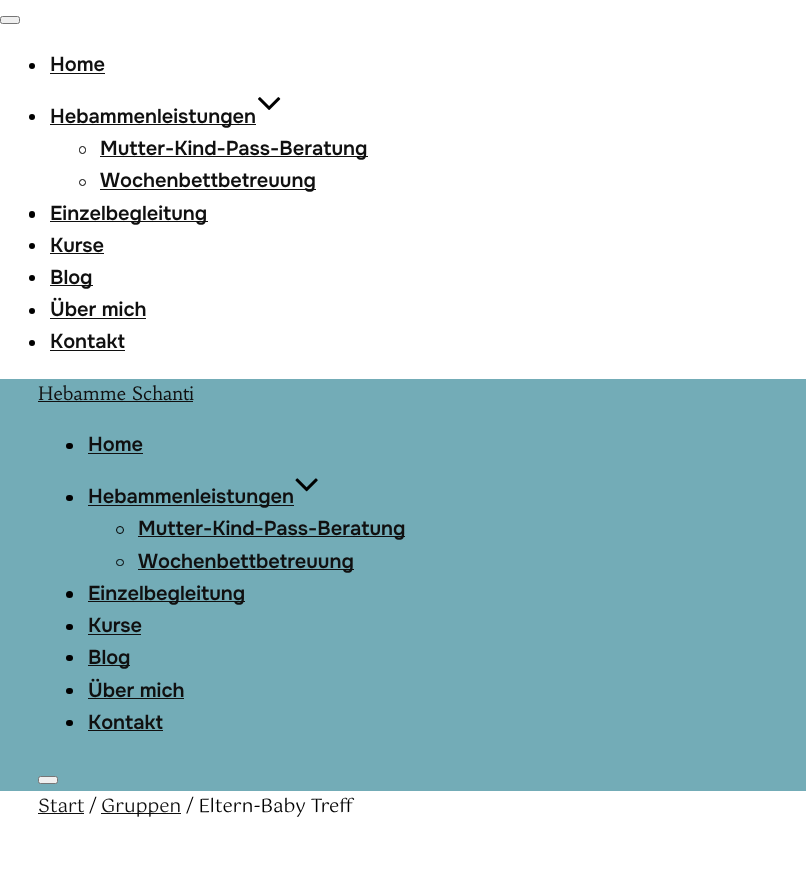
<svg xmlns="http://www.w3.org/2000/svg" width="806" height="879">
<style>
.a{font:600 20px Onest;fill:#101010}
.b{font:18.5px Habibi;fill:#101010}
.c{font:18.5px Gotu;fill:#101010}
.d{font:18.5px Gotu;fill:#000}
</style>
<rect width="100%" height="100%" fill="#fff"/>
<rect fill="#efefef" stroke="#767676" x="0.5" y="16.5" width="19" height="7" rx="2"/>
<circle fill="#000" cx="32" cy="66" r="3"/>
<path fill="#101010" d="M50 73h55v1H50z"/>
<image href="1.png" x="258" y="97" width="23" height="13"/>
<circle fill="#000" cx="32" cy="117" r="3"/>
<path fill="#101010" d="M50 124h206v1H50z"/>
<rect fill="none" stroke="#000" x="79.5" y="146.5" width="6" height="7" rx="3"/>
<path fill="#101010" d="M100 156h268v1H100z"/>
<circle fill="none" stroke="#000" cx="82.5" cy="182.5" r="3"/>
<path fill="#101010" d="M100 189h216v1H100z"/>
<rect fill="#000" x="29" y="211" width="6" height="7" rx="3"/>
<path fill="#101010" d="M50 221h158v1H50z"/>
<circle fill="#000" cx="32" cy="246" r="3"/>
<path fill="#101010" d="M50 253h54v1H50z"/>
<circle fill="#000" cx="32" cy="278" r="3"/>
<path fill="#101010" d="M50 285h43v1H50z"/>
<circle fill="#000" cx="32" cy="311" r="3"/>
<path fill="#101010" d="M50 318h96v1H50z"/>
<circle fill="#000" cx="32" cy="343" r="3"/>
<path fill="#101010" d="M50 350h75v1H50z"/>
<path fill="#73acb7" d="M0 379h806v412H0z"/>
<path fill="#101010" d="M38 401h155v1H38z"/>
<rect fill="#000" x="66" y="443" width="7" height="6" rx="3"/>
<path fill="#101010" d="M88 453h55v1H88z"/>
<image href="2.png" x="295" y="478" width="23" height="14"/>
<rect fill="#000" x="66" y="495" width="7" height="6" rx="3"/>
<path fill="#101010" d="M88 505h206v1H88z"/>
<circle fill="none" stroke="#000" cx="120" cy="530" r="3.5"/>
<path fill="#101010" d="M138 536h267v1H138z"/>
<rect fill="none" stroke="#000" x="116.5" y="559.5" width="7" height="6" rx="3"/>
<path fill="#101010" d="M138 569h216v1H138z"/>
<circle fill="#000" cx="69.5" cy="594.5" r="3.5"/>
<path fill="#101010" d="M88 601h157v1H88z"/>
<rect fill="#000" x="66" y="624" width="7" height="6" rx="3"/>
<path fill="#101010" d="M88 634h53v1H88z"/>
<rect fill="#000" x="66" y="655" width="7" height="6" rx="3"/>
<path fill="#101010" d="M88 665h42v1H88z"/>
<rect fill="#000" x="66" y="688" width="7" height="6" rx="3"/>
<path fill="#101010" d="M88 698h96v1H88z"/>
<rect fill="#000" x="66" y="720" width="7" height="6" rx="3"/>
<path fill="#101010" d="M88 730h75v1H88z"/>
<rect fill="#efefef" stroke="#767676" x="38.5" y="776.5" width="19" height="7" rx="2"/>
<path fill="#101010" d="M38 813h46v1H38z"/>
<path fill="#101010" d="M101 813h80v1H101z"/>
<text class="a" x="50" y="71">Home</text>
<text class="a" x="50" y="123">Hebammenleistungen</text>
<text class="a" x="100" y="155">Mutter-Kind-Pass-Beratung</text>
<text class="a" x="100" y="187">Wochenbettbetreuung</text>
<text class="a" x="50" y="220">Einzelbegleitung</text>
<text class="a" x="50" y="252">Kurse</text>
<text class="a" x="50" y="284">Blog</text>
<text class="a" x="50" y="316">Über mich</text>
<text class="a" x="50" y="348">Kontakt</text>
<text class="b" x="38" y="400">Hebamme Schanti</text>
<text class="a" x="88" y="451">Home</text>
<text class="a" x="88" y="503">Hebammenleistungen</text>
<text class="a" x="138" y="535">Mutter-Kind-Pass-Beratung</text>
<text class="a" x="138" y="568">Wochenbettbetreuung</text>
<text class="a" x="88" y="600">Einzelbegleitung</text>
<text class="a" x="88" y="632">Kurse</text>
<text class="a" x="88" y="664">Blog</text>
<text class="a" x="88" y="697">Über mich</text>
<text class="a" x="88" y="729">Kontakt</text>
<text class="c" x="38" y="812">Start</text>
<text class="d" x="89" y="812">/</text>
<text class="c" x="101" y="812">Gruppen</text>
<text class="d" x="186" y="812">/ Eltern-Baby Treff</text>
</svg>
